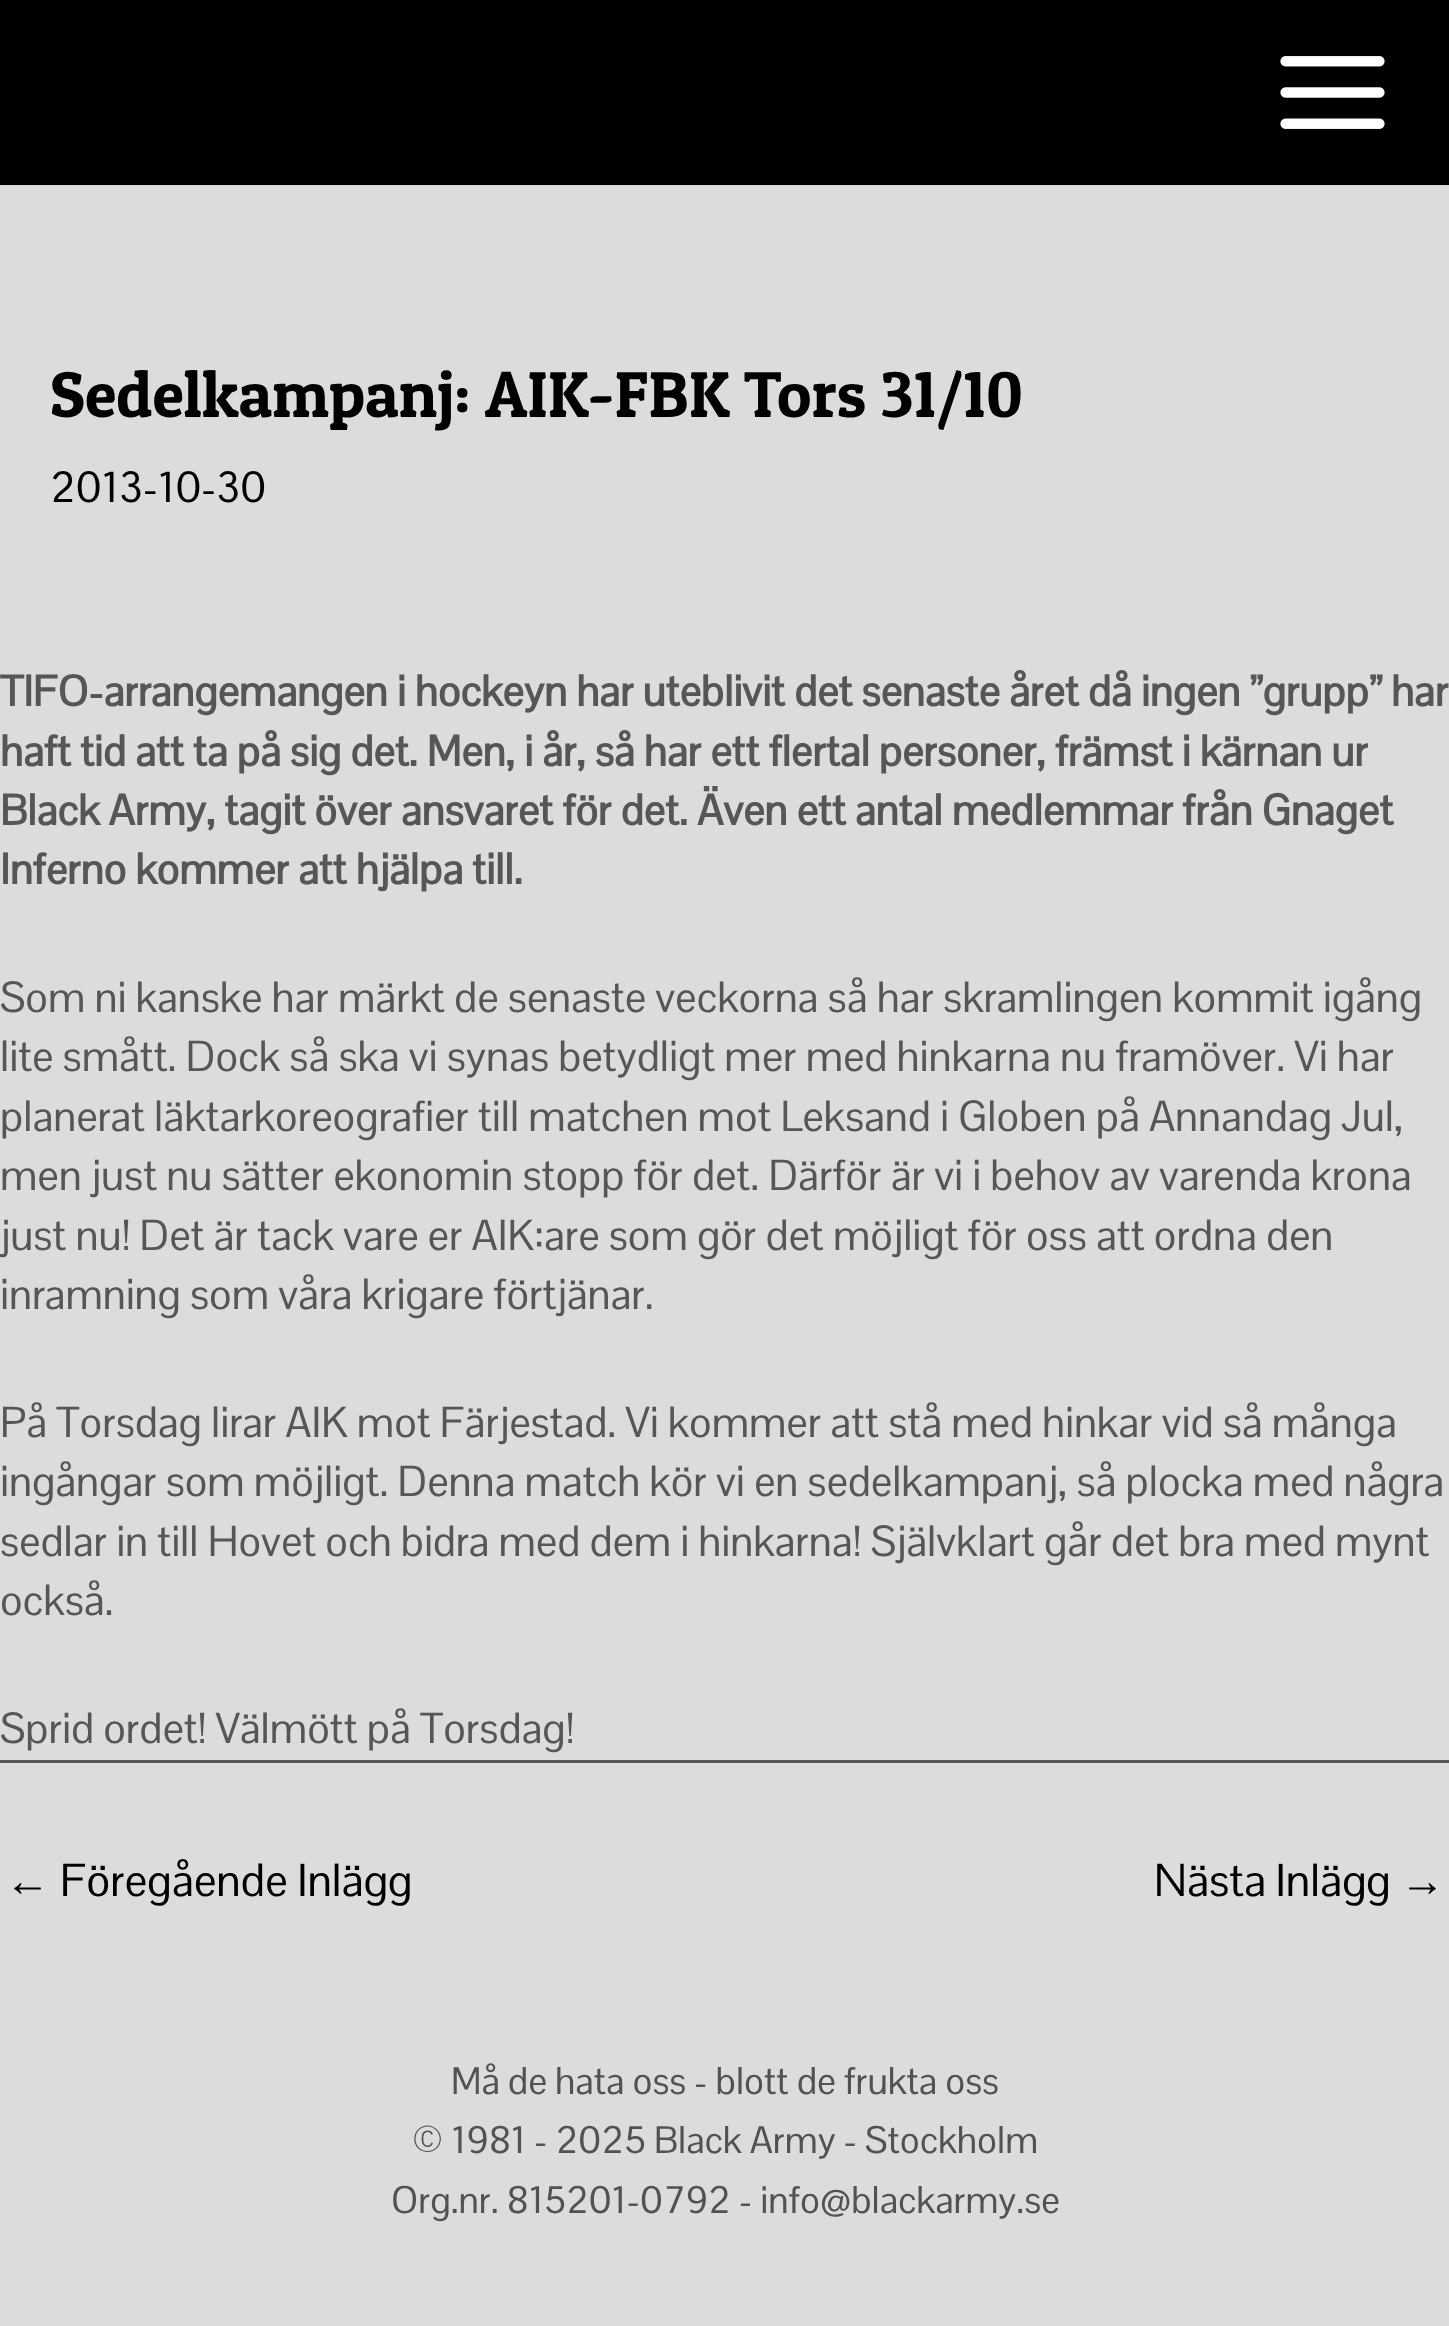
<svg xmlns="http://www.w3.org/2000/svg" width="1449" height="2326">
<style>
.a{font:65px Patua One;fill:#000}
.b{font:42.5px Pontano Sans;fill:#000}
.c{font:bold 42.5px Pontano Sans;fill:#565656}
.d{font:42.5px Pontano Sans;fill:#565656}
.e{font:45px Liberation Sans;fill:#000}
.f{font:45px Pontano Sans;fill:#000}
.g{font:37.5px Pontano Sans;fill:#545250}
</style>
<rect width="100%" height="100%" fill="#dcdcdc"/>
<path fill="#000" d="M0 0h1449v185H0z"/>
<image href="1.png" x="1280" y="56" width="105" height="73"/>
<path fill="#565656" d="M0 1760h1449v3H0z"/>
<text class="a" x="50" y="417">Sedelkampanj: AIK-FBK Tors 31/10</text>
<text class="b" x="50" y="502">2013-10-30</text>
<text class="c" x="0" y="706">TIFO-arrangemangen i hockeyn har uteblivit det senaste året då ingen ”grupp” har</text>
<text class="c" x="0" y="766">haft tid att ta på sig det. Men, i år, så har ett flertal personer, främst i kärnan ur</text>
<text class="c" x="0" y="825">Black Army, tagit över ansvaret för det. Även ett antal medlemmar från Gnaget</text>
<text class="c" x="0" y="884">Inferno kommer att hjälpa till.</text>
<text class="d" x="0" y="1012">Som ni kanske har märkt de senaste veckorna så har skramlingen kommit igång</text>
<text class="d" x="0" y="1071">lite smått. Dock så ska vi synas betydligt mer med hinkarna nu framöver. Vi har</text>
<text class="d" x="0" y="1131">planerat läktarkoreografier till matchen mot Leksand i Globen på Annandag Jul,</text>
<text class="d" x="0" y="1190">men just nu sätter ekonomin stopp för det. Därför är vi i behov av varenda krona</text>
<text class="d" x="0" y="1250">just nu! Det är tack vare er AIK:are som gör det möjligt för oss att ordna den</text>
<text class="d" x="0" y="1309">inramning som våra krigare förtjänar.</text>
<text class="d" x="0" y="1437">På Torsdag lirar AIK mot Färjestad. Vi kommer att stå med hinkar vid så många</text>
<text class="d" x="0" y="1496">ingångar som möjligt. Denna match kör vi en sedelkampanj, så plocka med några</text>
<text class="d" x="0" y="1556">sedlar in till Hovet och bidra med dem i hinkarna! Självklart går det bra med mynt</text>
<text class="d" x="0" y="1615">också.</text>
<text class="d" x="0" y="1743">Sprid ordet! Välmött på Torsdag!</text>
<text class="e" x="5" y="1896">←</text>
<text class="f" x="60" y="1896">Föregående Inlägg</text>
<text class="f" x="1154" y="1896">Nästa Inlägg</text>
<text class="e" x="1400" y="1896">→</text>
<text class="g" x="451" y="2094">Må de hata oss - blott de frukta oss</text>
<text class="g" x="412" y="2153">© 1981 - 2025 Black Army - Stockholm</text>
<text class="g" x="391" y="2213">Org.nr. 815201-0792 - info@blackarmy.se</text>
</svg>
